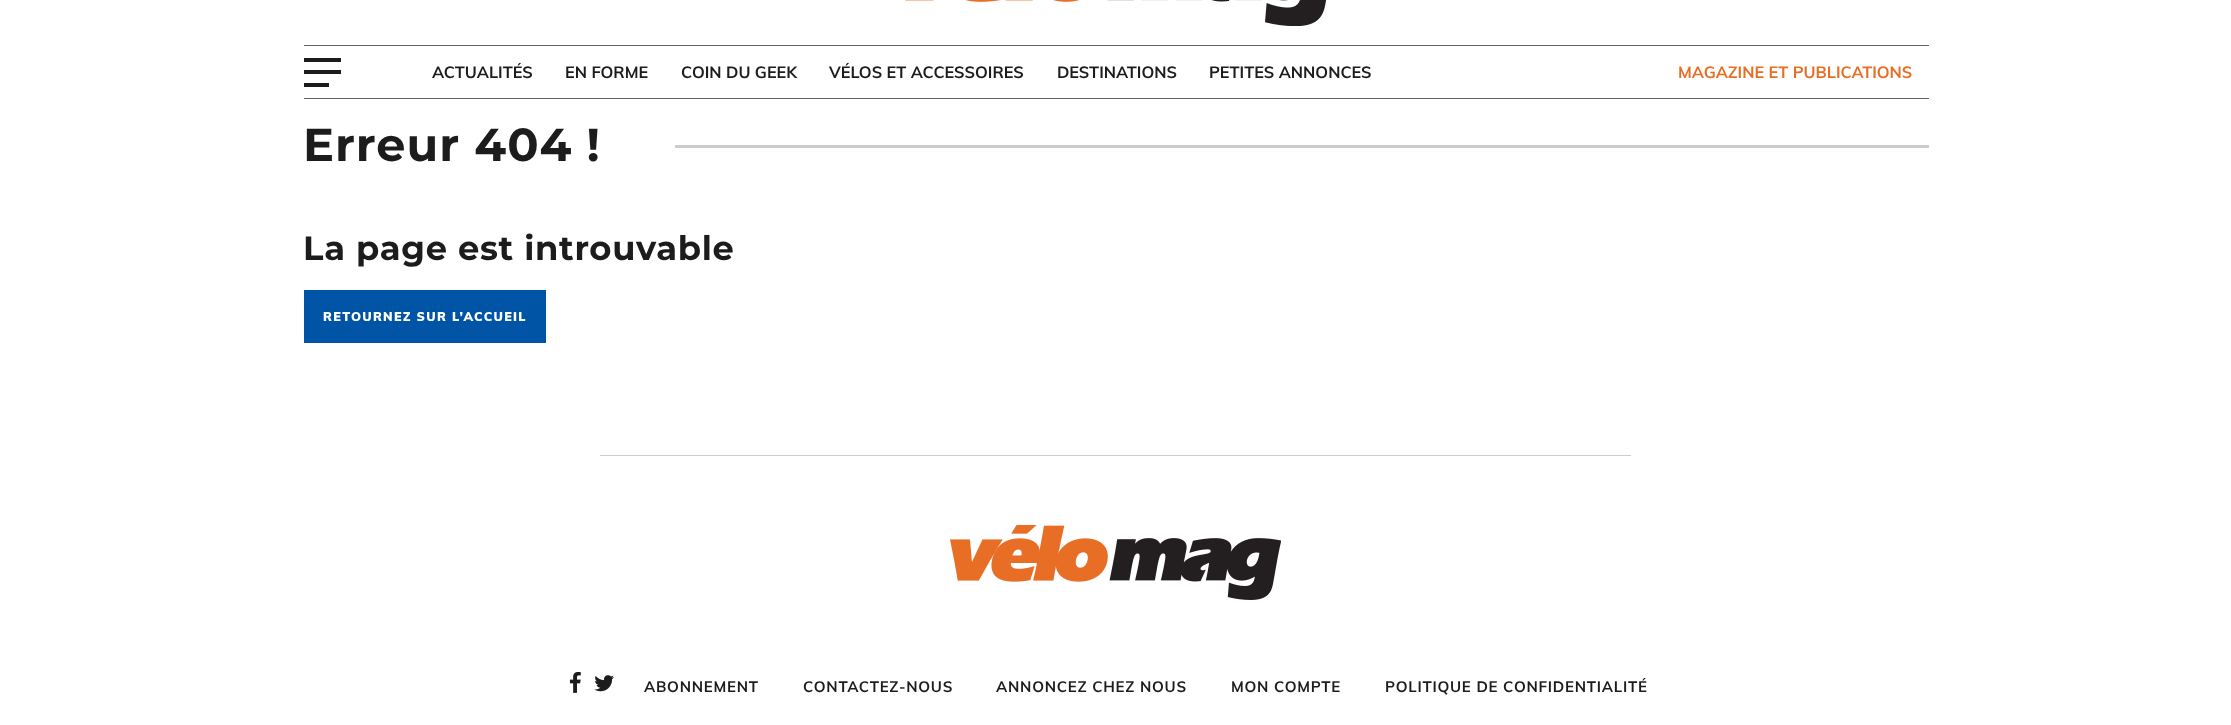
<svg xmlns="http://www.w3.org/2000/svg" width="2231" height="725">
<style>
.a{font:bold 16.25px Muli;fill:#1c1c1c}
.b{font:bold 16.25px Muli;fill:#e86e25}
.c{font:bold 46.25px Montserrat;letter-spacing:1px;fill:#1c1c1c}
.d{font:bold 33.75px Montserrat;letter-spacing:0.7px;fill:#1c1c1c}
.e{font:900 12.5px Muli;letter-spacing:1.25px;fill:#fff}
.f{font:bold 15px Muli;letter-spacing:0.75px;fill:#1c1c1c}
</style>
<rect width="100%" height="100%" fill="#fff"/>
<image href="1.png" x="905" y="0" width="422" height="26"/>
<path fill="#1c1c1c" d="M304 58h37v4H304z"/>
<path fill="#1c1c1c" d="M304 70h37v4H304z"/>
<path fill="#1c1c1c" d="M304 83h25v4H304z"/>
<path fill="#636363" d="M304 45h1625v1H304z"/>
<path fill="#636363" d="M304 98h1625v1H304z"/>
<path fill="#ccc" d="M675 145h1254v3H675z"/>
<path fill="#0054a6" d="M304 290h242v53H304z"/>
<path fill="#ccc" d="M600 455h1031v1H600z"/>
<image href="2.png" x="950" y="525" width="331" height="75"/>
<image href="3.png" x="569" y="672" width="12" height="21"/>
<image href="4.png" x="594" y="675" width="20" height="17"/>
<text class="a" x="432" y="78">ACTUALITÉS</text>
<text class="a" x="565" y="78">EN FORME</text>
<text class="a" x="681" y="78">COIN DU GEEK</text>
<text class="a" x="829" y="78">VÉLOS ET ACCESSOIRES</text>
<text class="a" x="1057" y="78">DESTINATIONS</text>
<text class="a" x="1209" y="78">PETITES ANNONCES</text>
<text class="b" x="1678" y="78">MAGAZINE ET PUBLICATIONS</text>
<text class="c" x="303" y="161">Erreur 404 !</text>
<text class="d" x="303" y="260">La page est introuvable</text>
<text class="e" x="323" y="321">RETOURNEZ SUR L’ACCUEIL</text>
<text class="f" x="644" y="692">ABONNEMENT</text>
<text class="f" x="803" y="692">CONTACTEZ-NOUS</text>
<text class="f" x="996" y="692">ANNONCEZ CHEZ NOUS</text>
<text class="f" x="1231" y="692">MON COMPTE</text>
<text class="f" x="1385" y="692">POLITIQUE DE CONFIDENTIALITÉ</text>
</svg>
